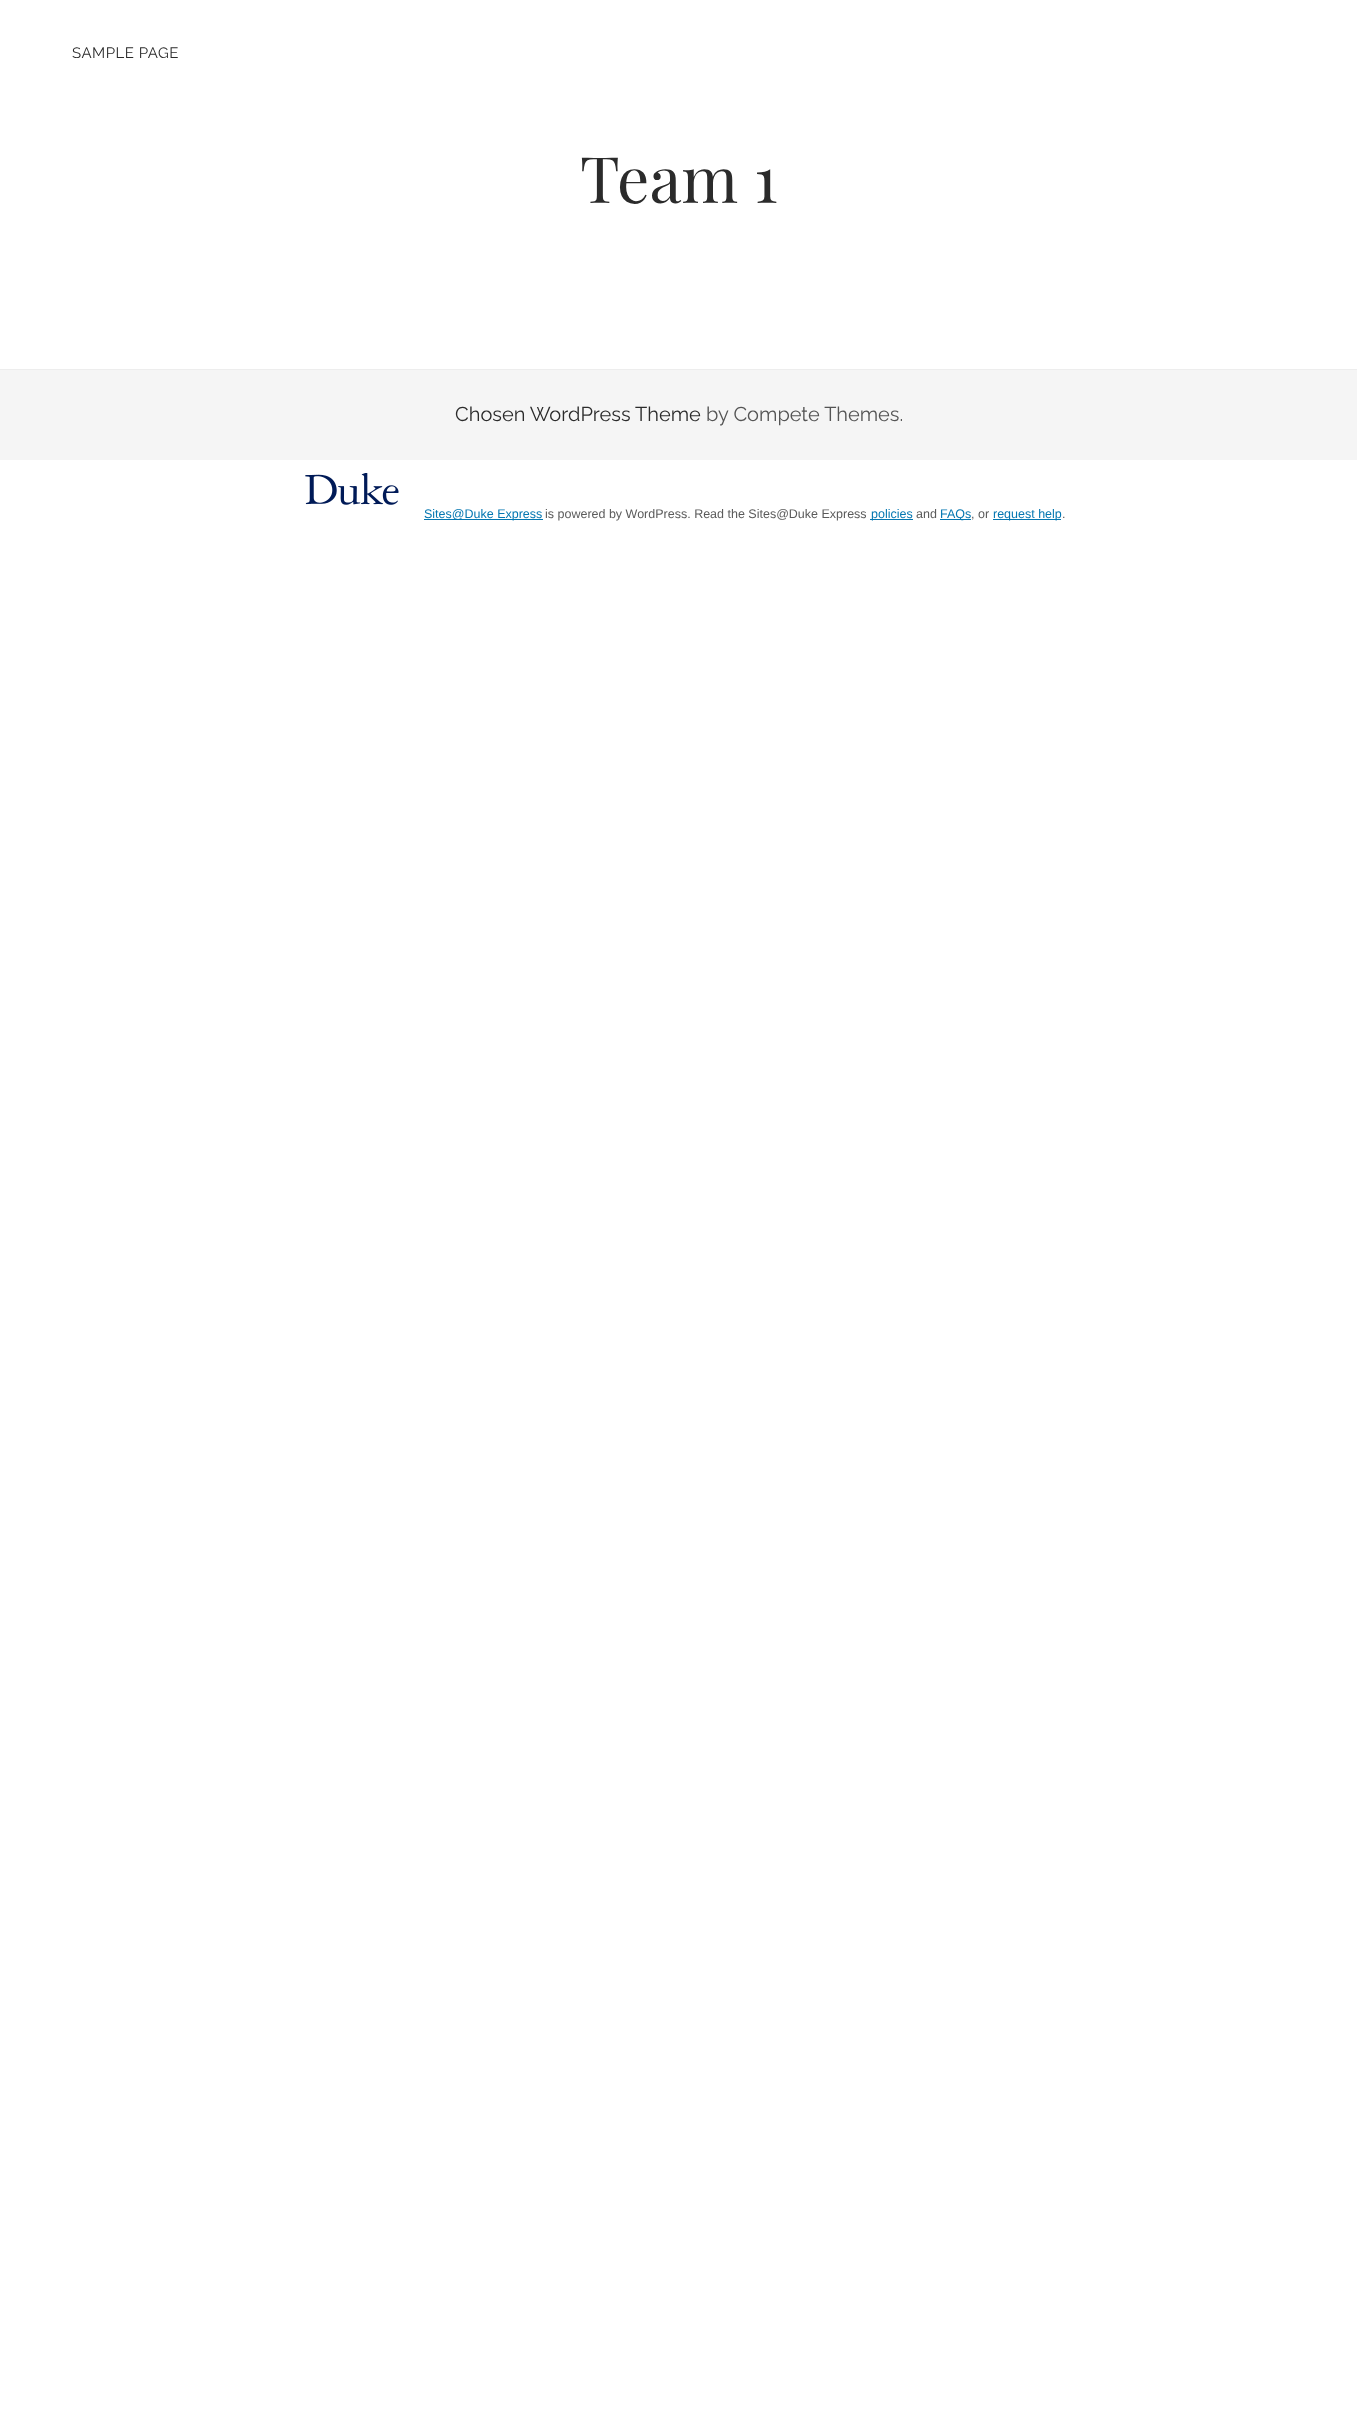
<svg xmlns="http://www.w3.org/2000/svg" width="1357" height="2419">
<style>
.a{font:15px Raleway;letter-spacing:0.5px;fill:#2b2b2b}
.b{font:64px Playfair Display;fill:#2b2b2b}
.c{font:20px Raleway;fill:#2b2b2b}
.d{font:20px Raleway;fill:#545454}
.e{font:12.5px Liberation Sans;fill:#0577b1}
.f{font:12.5px Liberation Sans;fill:#5b5b5b}
</style>
<rect width="100%" height="100%" fill="#fff"/>
<path fill="#f5f5f5" d="M0 370h1357v90H0z"/>
<path fill="#ededed" d="M0 369h1357v1H0z"/>
<image href="1.png" x="305" y="473" width="94" height="32"/>
<path fill="#0577b1" d="M424 519h119v1H424z"/>
<path fill="#0577b1" d="M870 519h43v1H870z"/>
<path fill="#0577b1" d="M940 519h31v1H940z"/>
<path fill="#0577b1" d="M993 519h68v1H993z"/>
<text class="a" x="72" y="58">SAMPLE PAGE</text>
<text class="b" x="580" y="203">Team 1</text>
<text class="c" x="455" y="421">Chosen WordPress Theme</text>
<text class="d" x="706" y="421">by Compete Themes.</text>
<text class="e" x="424" y="518">Sites@Duke Express</text>
<text class="f" x="545" y="518">is powered by WordPress. Read the Sites@Duke Express</text>
<text class="e" x="871" y="518">policies</text>
<text class="f" x="916" y="518">and</text>
<text class="e" x="940" y="518">FAQs</text>
<text class="f" x="971" y="518">, or</text>
<text class="e" x="993" y="518">request help</text>
<text class="f" x="1062" y="518">.</text>
</svg>
